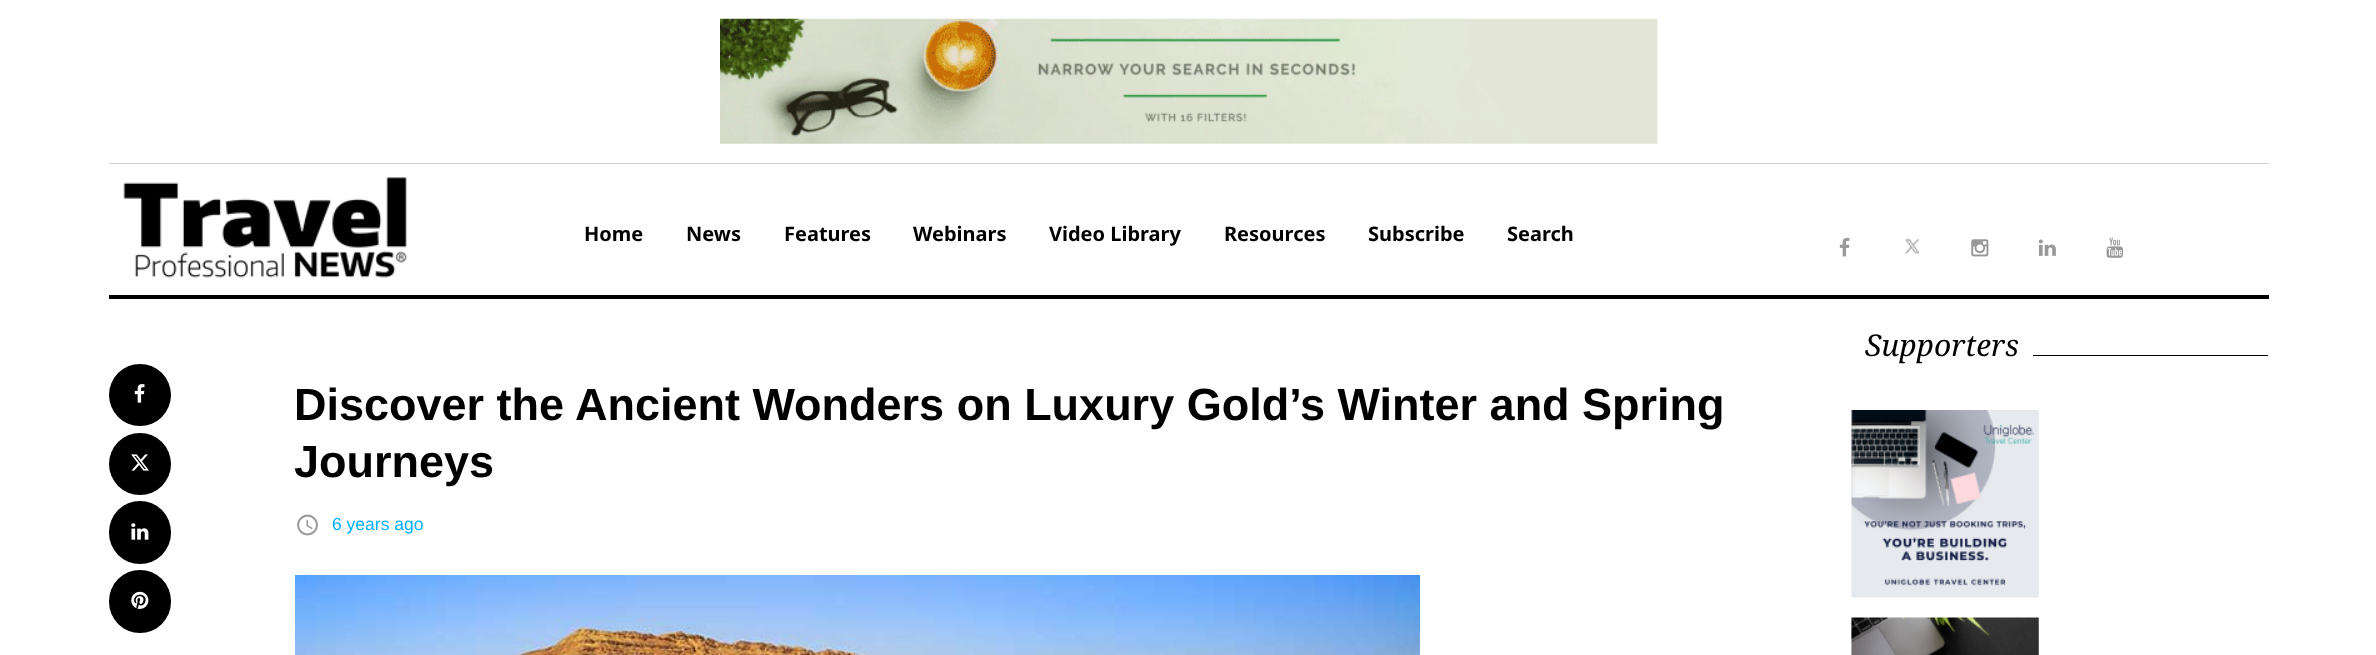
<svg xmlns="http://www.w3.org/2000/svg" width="2376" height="655">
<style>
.a{font:bold 20px Noto Sans;fill:#000}
.b{font:italic 30px Noto Serif;fill:#000}
.c{font:bold 45px Liberation Sans;fill:#000}
.d{font:17.5px Liberation Sans;fill:#02afff}
</style>
<rect width="100%" height="100%" fill="#fff"/>
<path fill="#d2d1d1" d="M109 163h2160v1H109z"/>
<image href="1.png" x="720" y="18" width="938" height="126"/>
<path fill="#000" d="M109 295h2160v4H109z"/>
<image href="2.png" x="123" y="177" width="284" height="101"/>
<image href="3.png" x="1839" y="237" width="11" height="20"/>
<image href="4.png" x="1905" y="238" width="14" height="16"/>
<image href="5.png" x="1971" y="239" width="18" height="18"/>
<image href="6.png" x="2038" y="239" width="18" height="17"/>
<image href="7.png" x="2106" y="237" width="18" height="21"/>
<path fill="#000" d="M2033 355h235v1H2033z"/>
<image href="8.png" x="1851" y="410" width="188" height="188"/>
<image href="9.png" x="1851" y="617" width="188" height="38"/>
<circle fill="#000" cx="140" cy="395" r="31"/>
<image href="10.png" x="134" y="384" width="11" height="19"/>
<circle fill="#000" cx="140" cy="464" r="31"/>
<image href="11.png" x="131" y="454" width="18" height="17"/>
<rect fill="#000" x="109" y="501" width="62" height="63" rx="31"/>
<image href="12.png" x="131" y="523" width="18" height="17"/>
<rect fill="#000" x="109" y="570" width="62" height="63" rx="31"/>
<image href="13.png" x="131" y="591" width="18" height="18"/>
<image href="14.png" x="297" y="514" width="21" height="22"/>
<image href="15.png" x="295" y="575" width="1125" height="80"/>
<text class="a" x="584" y="241">Home</text>
<text class="a" x="686" y="241">News</text>
<text class="a" x="784" y="241">Features</text>
<text class="a" x="913" y="241">Webinars</text>
<text class="a" x="1049" y="241">Video Library</text>
<text class="a" x="1224" y="241">Resources</text>
<text class="a" x="1368" y="241">Subscribe</text>
<text class="a" x="1507" y="241">Search</text>
<text class="b" x="1865" y="356">Supporters</text>
<text class="c" x="294" y="420">Discover the Ancient Wonders on Luxury Gold’s Winter and Spring</text>
<text class="c" x="294" y="477">Journeys</text>
<text class="d" x="332" y="530">6 years ago</text>
</svg>
